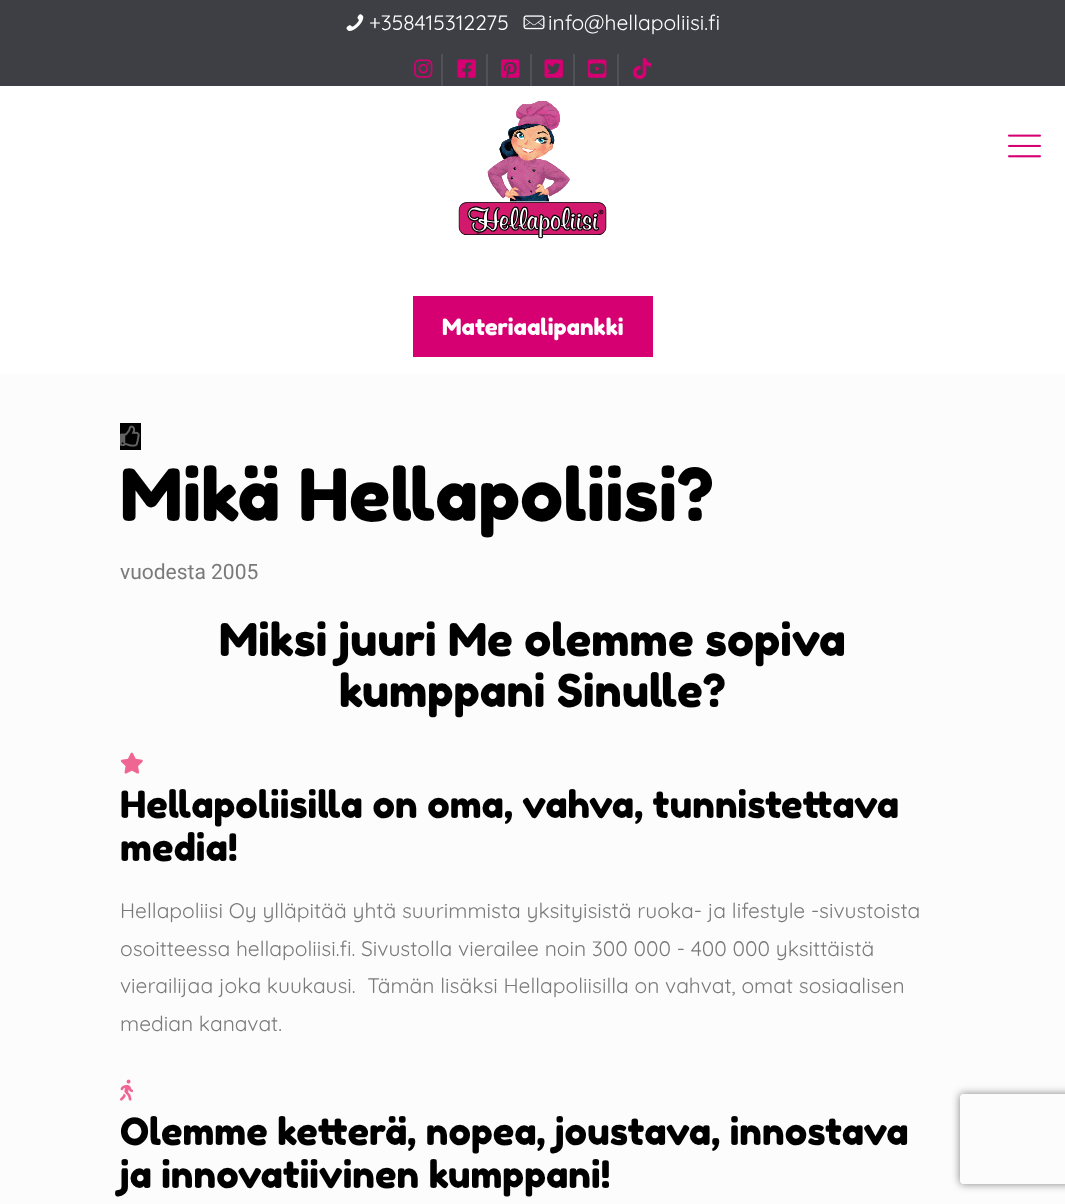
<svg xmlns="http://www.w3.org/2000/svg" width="1065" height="1204">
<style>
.a{font:300 21px Quicksand;fill:#fff}
.b{font:22.5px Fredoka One;fill:#fff}
.c{font:72px Fredoka One;fill:#000}
.d{font:21px Roboto;fill:#7a7a7a}
.e{font:45px Fredoka One;fill:#000}
.f{font:37.5px Fredoka One;fill:#000}
.g{font:300 21px Quicksand;fill:#7a7a7a}
</style>
<defs>
<clipPath id="clip1"><path d="M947 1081h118v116h-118zm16 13h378c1.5 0 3 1.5 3 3v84c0 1.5-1.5 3-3 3h-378c-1.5 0-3-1.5-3-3v-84c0-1.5 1.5-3 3-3z" clip-rule="evenodd"/></clipPath>
</defs>
<rect width="100%" height="100%" fill="#fcfcfc"/>
<path fill="#3e3e45" d="M0 0h1065v86H0z"/>
<image href="1.png" x="346" y="14" width="18" height="17"/>
<image href="2.png" x="523" y="15" width="22" height="15"/>
<path fill="#515158" d="M441 54h2v32H441z"/>
<image href="3.png" x="414" y="59" width="19" height="19"/>
<path fill="#515158" d="M486 54h2v32H486z"/>
<image href="4.png" x="457" y="59" width="19" height="19"/>
<path fill="#515158" d="M530 54h2v32H530z"/>
<image href="5.png" x="501" y="59" width="19" height="19"/>
<path fill="#515158" d="M573 54h2v32H573z"/>
<image href="6.png" x="544" y="59" width="19" height="19"/>
<path fill="#515158" d="M617 54h2v32H617z"/>
<image href="7.png" x="588" y="59" width="19" height="19"/>
<image href="8.png" x="633" y="58" width="19" height="22"/>
<path fill="#fff" d="M0 86h1065v288H0z"/>
<image href="9.png" x="458" y="101" width="149" height="138"/>
<image href="10.png" x="1008" y="134" width="33" height="24"/>
<path fill="#d70073" d="M413 296h240v61H413z"/>
<path fill="#000" d="M120 423h21v27H120z"/>
<image href="11.png" x="120" y="425" width="20" height="22"/>
<image href="12.png" x="120" y="752" width="23" height="22"/>
<image href="13.png" x="120" y="1079" width="14" height="22"/>
<g clip-path="url(#clip1)">
<rect fill="#808080" filter="blur(4px)" x="960" y="1094" width="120" height="90" rx="3"/>
</g>
<text class="a" x="369" y="30">+358415312275</text>
<text class="a" x="548" y="30">info@hellapoliisi.fi</text>
<text class="b" x="442" y="335">Materiaalipankki</text>
<text class="c" x="120" y="521">Mikä Hellapoliisi?</text>
<text class="d" x="120" y="579">vuodesta 2005</text>
<text class="e" x="219" y="656">Miksi juuri Me olemme sopiva</text>
<text class="e" x="339" y="707">kumppani Sinulle?</text>
<text class="f" x="120" y="818">Hellapoliisilla on oma, vahva, tunnistettava</text>
<text class="f" x="120" y="861">media!</text>
<text class="g" x="120" y="918">Hellapoliisi Oy ylläpitää yhtä suurimmista yksityisistä ruoka- ja lifestyle -sivustoista</text>
<text class="g" x="120" y="956">osoitteessa hellapoliisi.fi. Sivustolla vierailee noin 300 000 - 400 000 yksittäistä</text>
<text class="g" xml:space="preserve" x="120" y="993">vierailijaa joka kuukausi.  Tämän lisäksi Hellapoliisilla on vahvat, omat sosiaalisen</text>
<text class="g" x="120" y="1031">median kanavat.</text>
<text class="f" x="120" y="1145">Olemme ketterä, nopea, joustava, innostava</text>
<text class="f" x="120" y="1188">ja innovatiivinen kumppani!</text>
</svg>
